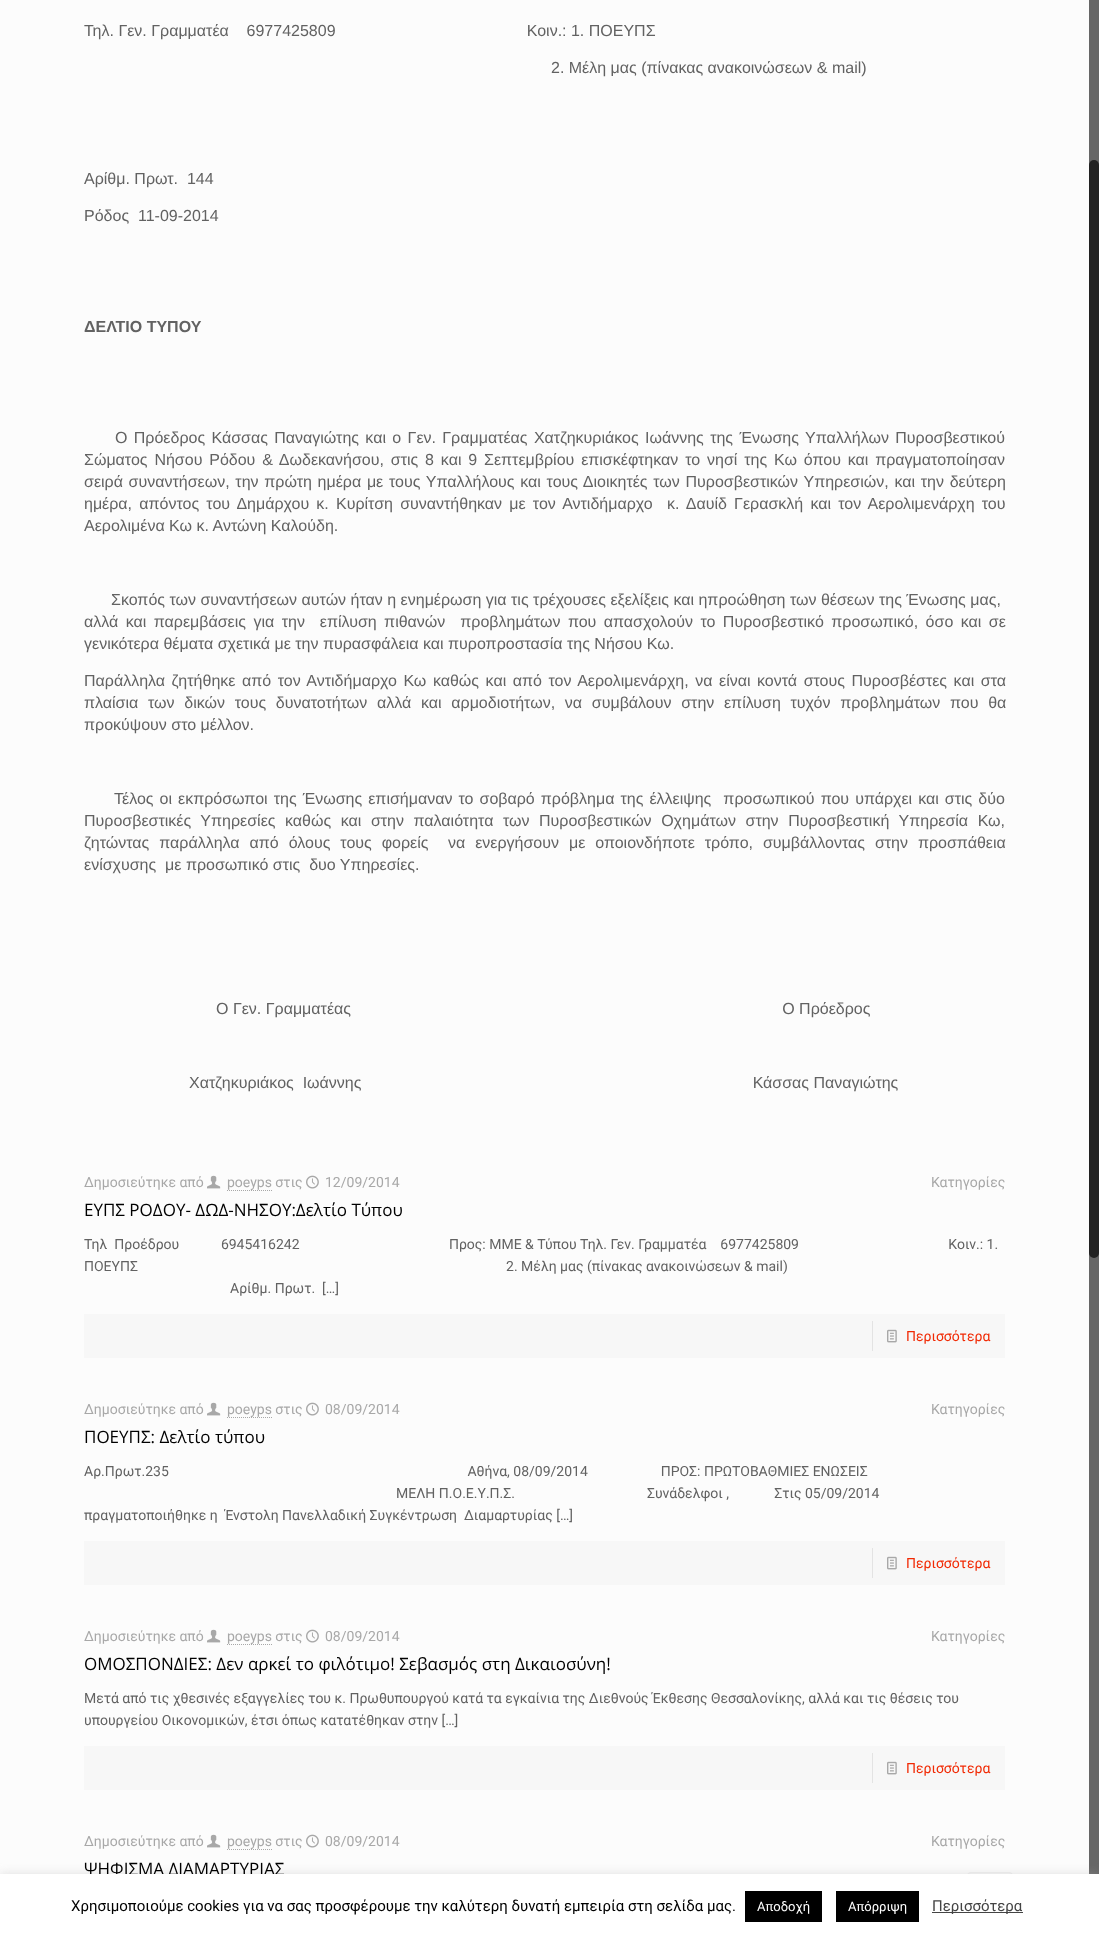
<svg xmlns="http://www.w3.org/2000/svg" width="1099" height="1939">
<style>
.a{font:16px Liberation Sans;fill:#626262}
.b{font:bold 16px Liberation Sans;fill:#626262}
.c{font:14px Roboto;fill:#a8a8a8}
.d{font:17px Open Sans;fill:#000}
.e{font:14px Roboto;fill:#626262}
.f{font:14px Roboto;fill:#f12a04}
.g{font:15px Roboto;fill:#000}
.h{font:13px Roboto;fill:#fff}
.i{font:15px Roboto;fill:#444}
</style>
<rect width="100%" height="100%" fill="#fcfcfc"/>
<image href="1.png" x="207" y="1175" width="14" height="14"/>
<path fill="none" stroke="#a8a8a8" stroke-dasharray="1 1" d="M227 1190.5h45"/>
<image href="2.png" x="306" y="1175" width="13" height="14"/>
<path fill="#f7f7f7" d="M84 1314h921v44H84z"/>
<path fill="#e3e3e3" d="M872 1321h1v30H872z"/>
<image href="3.png" x="887" y="1329" width="10" height="14"/>
<image href="1.png" x="207" y="1402" width="14" height="14"/>
<path fill="none" stroke="#a8a8a8" stroke-dasharray="1 1" d="M227 1417.5h45"/>
<image href="2.png" x="306" y="1402" width="13" height="14"/>
<path fill="#f7f7f7" d="M84 1541h921v44H84z"/>
<path fill="#e3e3e3" d="M872 1548h1v30H872z"/>
<image href="3.png" x="887" y="1556" width="10" height="14"/>
<image href="1.png" x="207" y="1629" width="14" height="14"/>
<path fill="none" stroke="#a8a8a8" stroke-dasharray="1 1" d="M227 1644.5h45"/>
<image href="2.png" x="306" y="1629" width="13" height="14"/>
<path fill="#f7f7f7" d="M84 1746h921v44H84z"/>
<path fill="#e3e3e3" d="M872 1753h1v30H872z"/>
<image href="3.png" x="887" y="1761" width="10" height="14"/>
<image href="1.png" x="207" y="1834" width="14" height="14"/>
<path fill="none" stroke="#a8a8a8" stroke-dasharray="1 1" d="M227 1849.5h45"/>
<image href="2.png" x="306" y="1834" width="13" height="14"/>
<rect fill="#f7f7f7" stroke="#f0f0f0" x="966.5" y="1872.5" width="47" height="45" rx="4.5"/>
<path fill="#666" d="M1089 0h10v1874H1089z"/>
<rect fill="#222" x="1089" y="160" width="10" height="1098" rx="5"/>
<path fill="#acabab4d" filter="blur(5px)" d="M0 1873h1099v65H0z"/>
<text class="a" xml:space="preserve" x="84" y="36">Τηλ. Γεν. Γραμματέα    6977425809                                           Κοιν.: 1. ΠΟΕΥΠΣ</text>
<text class="a" x="551" y="73">2. Μέλη μας (πίνακας ανακοινώσεων &amp; mail)</text>
<text class="a" xml:space="preserve" x="84" y="184">Αρίθμ. Πρωτ.  144</text>
<text class="a" x="84" y="221">Ρόδος</text>
<text class="a" x="138" y="221">11-09-2014</text>
<text class="b" x="84" y="332">ΔΕΛΤΙΟ ΤΥΠΟΥ</text>
<text class="a" x="115" y="443" word-spacing="1.9">Ο Πρόεδρος Κάσσας Παναγιώτης και ο Γεν. Γραμματέας Χατζηκυριάκος Ιωάννης της Ένωσης Υπαλλήλων Πυροσβεστικού</text>
<text class="a" x="84" y="465" word-spacing="2.4">Σώματος Νήσου Ρόδου &amp; Δωδεκανήσου, στις 8 και 9 Σεπτεμβρίου επισκέφτηκαν το νησί της Κω όπου και πραγματοποίησαν</text>
<text class="a" x="84" y="487" word-spacing="1.25">σειρά συναντήσεων, την πρώτη ημέρα με τους Υπαλλήλους και τους Διοικητές των Πυροσβεστικών Υπηρεσιών, και την δεύτερη</text>
<text class="a" xml:space="preserve" x="84" y="509" word-spacing="2.75">ημέρα, απόντος του Δημάρχου κ. Κυρίτση συναντήθηκαν με τον Αντιδήμαρχο  κ. Δαυίδ Γερασκλή και τον Αερολιμενάρχη του</text>
<text class="a" x="84" y="531">Αερολιμένα Κω κ. Αντώνη Καλούδη.</text>
<text class="a" x="111" y="605">Σκοπός των συναντήσεων αυτών ήταν η ενημέρωση για τις τρέχουσες εξελίξεις και ηπροώθηση των θέσεων της Ένωσης μας,</text>
<text class="a" xml:space="preserve" x="84" y="627" word-spacing="3">αλλά και παρεμβάσεις για την  επίλυση πιθανών  προβλημάτων που απασχολούν το Πυροσβεστικό προσωπικό, όσο και σε</text>
<text class="a" x="84" y="649">γενικότερα θέματα σχετικά με την πυρασφάλεια και πυροπροστασία της Νήσου Κω.</text>
<text class="a" x="84" y="686" word-spacing="2.1">Παράλληλα ζητήθηκε από τον Αντιδήμαρχο Κω καθώς και από τον Αερολιμενάρχη, να είναι κοντά στους Πυροσβέστες και στα</text>
<text class="a" x="84" y="708" word-spacing="5.25">πλαίσια των δικών τους δυνατοτήτων αλλά και αρμοδιοτήτων, να συμβάλουν στην επίλυση τυχόν προβλημάτων που θα</text>
<text class="a" x="84" y="730">προκύψουν στο μέλλον.</text>
<text class="a" xml:space="preserve" x="114" y="804" word-spacing="1.6">Τέλος οι εκπρόσωποι της Ένωσης επισήμαναν το σοβαρό πρόβλημα της έλλειψης  προσωπικού που υπάρχει και στις δύο</text>
<text class="a" x="84" y="826" word-spacing="5.1">Πυροσβεστικές Υπηρεσίες καθώς και στην παλαιότητα των Πυροσβεστικών Οχημάτων στην Πυροσβεστική Υπηρεσία Κω,</text>
<text class="a" x="84" y="848" word-spacing="5.5">ζητώντας παράλληλα από όλους τους φορείς</text>
<text class="a" x="448" y="848" word-spacing="5.5">να ενεργήσουν με οποιονδήποτε τρόπο, συμβάλλοντας στην προσπάθεια</text>
<text class="a" xml:space="preserve" x="84" y="870">ενίσχυσης  με προσωπικό στις  δυο Υπηρεσίες.</text>
<text class="a" xml:space="preserve" x="216" y="1014">Ο Γεν. Γραμματέας                                                                                                 Ο Πρόεδρος</text>
<text class="a" xml:space="preserve" x="189" y="1088">Χατζηκυριάκος  Ιωάννης                                                                                        Κάσσας Παναγιώτης</text>
<text class="c" x="84" y="1187">Δημοσιεύτηκε από</text>
<text class="c" x="227" y="1187">poeyps στις</text>
<text class="c" x="325" y="1187">12/09/2014</text>
<text class="c" x="931" y="1187">Κατηγορίες</text>
<text class="d" x="84" y="1216">ΕΥΠΣ ΡΟΔΟΥ- ΔΩΔ-ΝΗΣΟΥ:Δελτίο Τύπου</text>
<text class="e" xml:space="preserve" x="84" y="1249">Τηλ  Προέδρου            6945416242                                           Προς: MME &amp; Τύπου Τηλ. Γεν. Γραμματέα    6977425809                                           Κοιν.: 1.</text>
<text class="e" xml:space="preserve" x="84" y="1271">ΠΟΕΥΠΣ                                                                                                          2. Μέλη μας (πίνακας ανακοινώσεων &amp; mail)</text>
<text class="e" xml:space="preserve" x="230" y="1293">Αρίθμ. Πρωτ.  […]</text>
<text class="f" x="906" y="1341">Περισσότερα</text>
<text class="c" x="84" y="1414">Δημοσιεύτηκε από</text>
<text class="c" x="227" y="1414">poeyps στις</text>
<text class="c" x="325" y="1414">08/09/2014</text>
<text class="c" x="931" y="1414">Κατηγορίες</text>
<text class="d" x="84" y="1443">ΠΟΕΥΠΣ: Δελτίο τύπου</text>
<text class="e" xml:space="preserve" x="84" y="1476">Αρ.Πρωτ.235                                                                                      Αθήνα, 08/09/2014                     ΠΡΟΣ: ΠΡΩΤΟΒΑΘΜΙΕΣ ΕΝΩΣΕΙΣ</text>
<text class="e" xml:space="preserve" x="396" y="1498">ΜΕΛΗ Π.Ο.Ε.Υ.Π.Σ.                                      Συνάδελφοι ,             Στις 05/09/2014</text>
<text class="e" xml:space="preserve" x="84" y="1520">πραγματοποιήθηκε η  Ένστολη Πανελλαδική Συγκέντρωση  Διαμαρτυρίας […]</text>
<text class="f" x="906" y="1568">Περισσότερα</text>
<text class="c" x="84" y="1641">Δημοσιεύτηκε από</text>
<text class="c" x="227" y="1641">poeyps στις</text>
<text class="c" x="325" y="1641">08/09/2014</text>
<text class="c" x="931" y="1641">Κατηγορίες</text>
<text class="d" x="84" y="1670">ΟΜΟΣΠΟΝΔΙΕΣ: Δεν αρκεί το φιλότιμο! Σεβασμός στη Δικαιοσύνη!</text>
<text class="e" x="84" y="1703">Μετά από τις χθεσινές εξαγγελίες του κ. Πρωθυπουργού κατά τα εγκαίνια της Διεθνούς Έκθεσης Θεσσαλονίκης, αλλά και τις θέσεις του</text>
<text class="e" x="84" y="1725">υπουργείου Οικονομικών, έτσι όπως κατατέθηκαν στην […]</text>
<text class="f" x="906" y="1773">Περισσότερα</text>
<text class="c" x="84" y="1846">Δημοσιεύτηκε από</text>
<text class="c" x="227" y="1846">poeyps στις</text>
<text class="c" x="325" y="1846">08/09/2014</text>
<text class="c" x="931" y="1846">Κατηγορίες</text>
<text class="d" x="84" y="1875">ΨΗΦΙΣΜΑ ΔΙΑΜΑΡΤΥΡΙΑΣ</text>
<path fill="#fff" d="M0 1874h1099v65H0z"/>
<text class="g" x="71" y="1911">Χρησιμοποιούμε cookies για να σας προσφέρουμε την καλύτερη δυνατή εμπειρία στη σελίδα μας.</text>
<path fill="#000" d="M745 1891h77v31H745z"/>
<text class="h" x="757" y="1911">Αποδοχή</text>
<path fill="#000" d="M836 1891h83v31H836z"/>
<text class="h" x="848" y="1911">Απόρριψη</text>
<path fill="#444" d="M932 1912h91v1H932z"/>
<text class="i" x="932" y="1911">Περισσότερα</text>
</svg>
